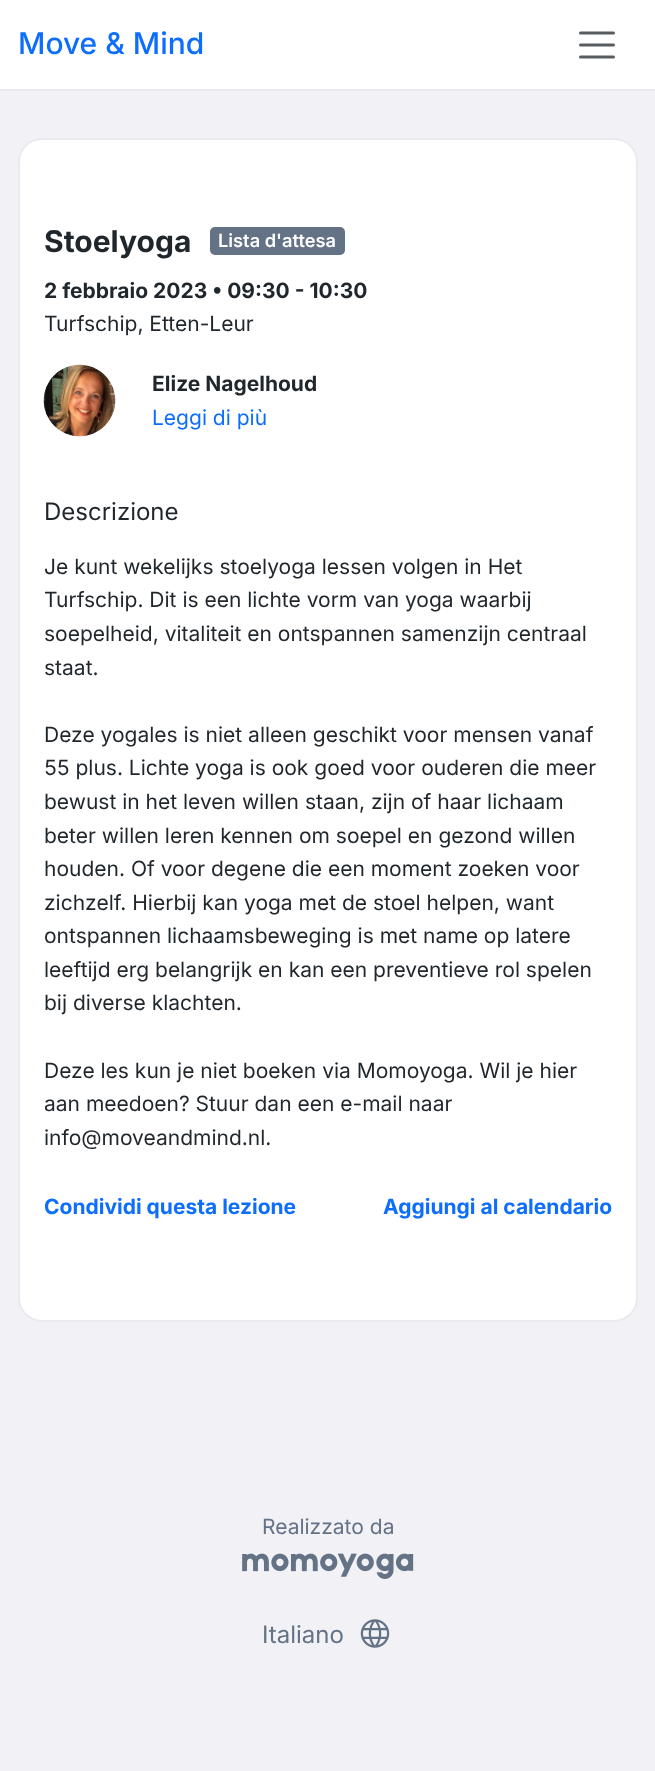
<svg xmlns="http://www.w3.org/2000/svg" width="655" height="1771">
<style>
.a{font:500 30px Inter;fill:#0d6efd}
.b{font:bold 30px Inter;fill:#1f262c}
.c{font:600 18.25px Inter;fill:#fff}
.d{font:bold 21px Inter;fill:#1f262c}
.e{font:21px Inter;fill:#1f262c}
.f{font:21px Inter;fill:#0d6efd}
.g{font:24px Inter;fill:#1f262c}
.h{font:bold 21px Inter;fill:#0d6efd}
.i{font:21px Inter;fill:#647286}
.j{font:24px Inter;fill:#647286}
</style>
<rect width="100%" height="100%" fill="#f2f1f6"/>
<path fill="#fff" d="M0 0h655v89H0z"/>
<path fill="#e8eaed" d="M0 89h655v2H0z"/>
<path fill="none" stroke="#575c61" stroke-width="3" stroke-linecap="round" d="M580.5 33h33m-33 12h33m-33 12h33"/>
<rect fill="#fff" stroke="#e8eaed" stroke-width="2" x="19" y="139" width="618" height="1182" rx="23"/>
<rect fill="#647286" x="210" y="227" width="135" height="28" rx="5"/>
<image href="1.png" x="43" y="364" width="73" height="73"/>
<image href="2.png" x="242" y="1553" width="172" height="26"/>
<image href="3.png" x="360" y="1619" width="30" height="29"/>
<text class="a" x="18" y="54">Move &amp; Mind</text>
<text class="b" x="44" y="252">Stoelyoga</text>
<text class="c" x="218" y="247">Lista d'attesa</text>
<text class="d" x="44" y="298">2 febbraio 2023 • 09:30 - 10:30</text>
<text class="e" x="44" y="331">Turfschip, Etten-Leur</text>
<text class="d" x="152" y="391">Elize Nagelhoud</text>
<text class="f" x="152" y="425">Leggi di più</text>
<text class="g" x="44" y="520">Descrizione</text>
<text class="e" x="44" y="574">Je kunt wekelijks stoelyoga lessen volgen in Het</text>
<text class="e" x="44" y="607">Turfschip. Dit is een lichte vorm van yoga waarbij</text>
<text class="e" x="44" y="641">soepelheid, vitaliteit en ontspannen samenzijn centraal</text>
<text class="e" x="44" y="675">staat.</text>
<text class="e" x="44" y="742">Deze yogales is niet alleen geschikt voor mensen vanaf</text>
<text class="e" x="44" y="775">55 plus. Lichte yoga is ook goed voor ouderen die meer</text>
<text class="e" x="44" y="809">bewust in het leven willen staan, zijn of haar lichaam</text>
<text class="e" x="44" y="843">beter willen leren kennen om soepel en gezond willen</text>
<text class="e" x="44" y="876">houden. Of voor degene die een moment zoeken voor</text>
<text class="e" x="44" y="910">zichzelf. Hierbij kan yoga met de stoel helpen, want</text>
<text class="e" x="44" y="943">ontspannen lichaamsbeweging is met name op latere</text>
<text class="e" x="44" y="977">leeftijd erg belangrijk en kan een preventieve rol spelen</text>
<text class="e" x="44" y="1010">bij diverse klachten.</text>
<text class="e" x="44" y="1078">Deze les kun je niet boeken via Momoyoga. Wil je hier</text>
<text class="e" x="44" y="1111">aan meedoen? Stuur dan een e-mail naar</text>
<text class="e" x="44" y="1145">info@moveandmind.nl.</text>
<text class="h" x="44" y="1214">Condividi questa lezione</text>
<text class="h" x="383" y="1214">Aggiungi al calendario</text>
<text class="i" x="262" y="1534">Realizzato da</text>
<text class="j" x="262" y="1643">Italiano</text>
</svg>
